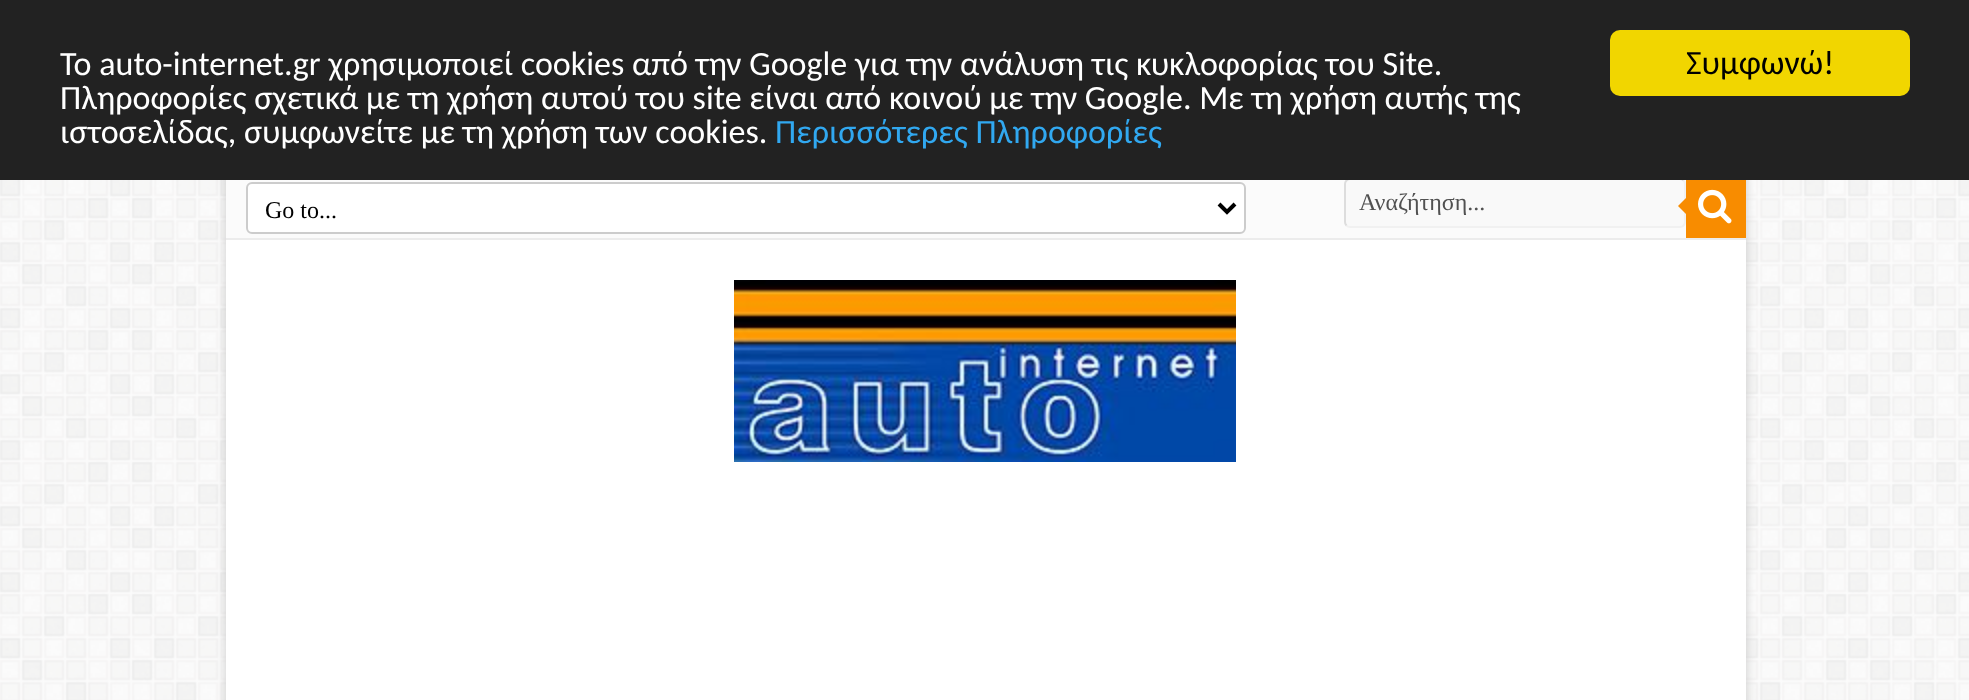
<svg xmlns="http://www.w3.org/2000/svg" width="1969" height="700">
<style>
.a{font:34px Carlito;fill:#fff}
.b{font:34px Carlito;fill:#31a8f0}
.c{font:34px Carlito;fill:#000}
.d{font:24px Liberation Serif;fill:#000}
.e{font:24px Liberation Serif;fill:#515151}
</style>
<rect width="100%" height="100%" fill="#fff"/>
<image href="1.png" x="0" y="180" width="1969" height="520"/>
<path fill="#cacaca" filter="blur(5px)" d="M226 172h1520v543H226z"/>
<path fill="#fbfbfb" d="M226 180h1460v58H226z"/>
<rect fill="#f9f9f9" x="1344" y="178" width="342" height="50" rx="6"/>
<path fill="none" stroke="#f1f1f1" stroke-width="2" d="M1683.5 180.5c1 1 1.5 2 1.5 3.5v38c0 1.5-.5 2.5-1.5 3.5c-1 1-2 1.5-3.5 1.5h-330c-1.5 0-2.5-.5-3.5-1.5"/>
<path fill="none" stroke="#ddd" stroke-width="2" d="M1346.5 225.5c-1-1-1.5-2-1.5-3.5v-38c0-1.5 .5-2.5 1.5-3.5c1-1 2-1.5 3.5-1.5h330c1.5 0 2.5 .5 3.5 1.5"/>
<path fill="#222" d="M0 0h1969v180H0z"/>
<rect fill="#f1d600" x="1610" y="30" width="300" height="66" rx="10"/>
<path fill="#fff" d="M226 240h1520v460H226z"/>
<path fill="#ececec" d="M226 238h1520v2H226z"/>
<rect fill="#fff" stroke="#ccc" stroke-width="2" x="247" y="183" width="998" height="50" rx="5"/>
<path fill="none" stroke="#000" stroke-width="4" d="M1219 204l8 8l8-8"/>
<path fill="#f88c00" d="M1686 180h60v58H1686z"/>
<image href="2.png" x="1698" y="189" width="34" height="35"/>
<path fill="#f88c00" d="M1686 198v16l-8-8z"/>
<image href="3.png" x="734" y="280" width="502" height="182"/>
<text class="a" x="60" y="75">Το auto-internet.gr χρησιμοποιεί cookies από την Google για την ανάλυση τις κυκλοφορίας του Site.</text>
<text class="a" x="60" y="109">Πληροφορίες σχετικά με τη χρήση αυτού του site είναι από κοινού με την Google. Με τη χρήση αυτής της</text>
<text class="a" x="60" y="143">ιστοσελίδας, συμφωνείτε με τη χρήση των cookies.</text>
<text class="b" x="775" y="143">Περισσότερες Πληροφορίες</text>
<text class="c" x="1686" y="74">Συμφωνώ!</text>
<text class="d" x="265" y="218">Go to...</text>
<text class="e" x="1359" y="210">Αναζήτηση...</text>
</svg>
